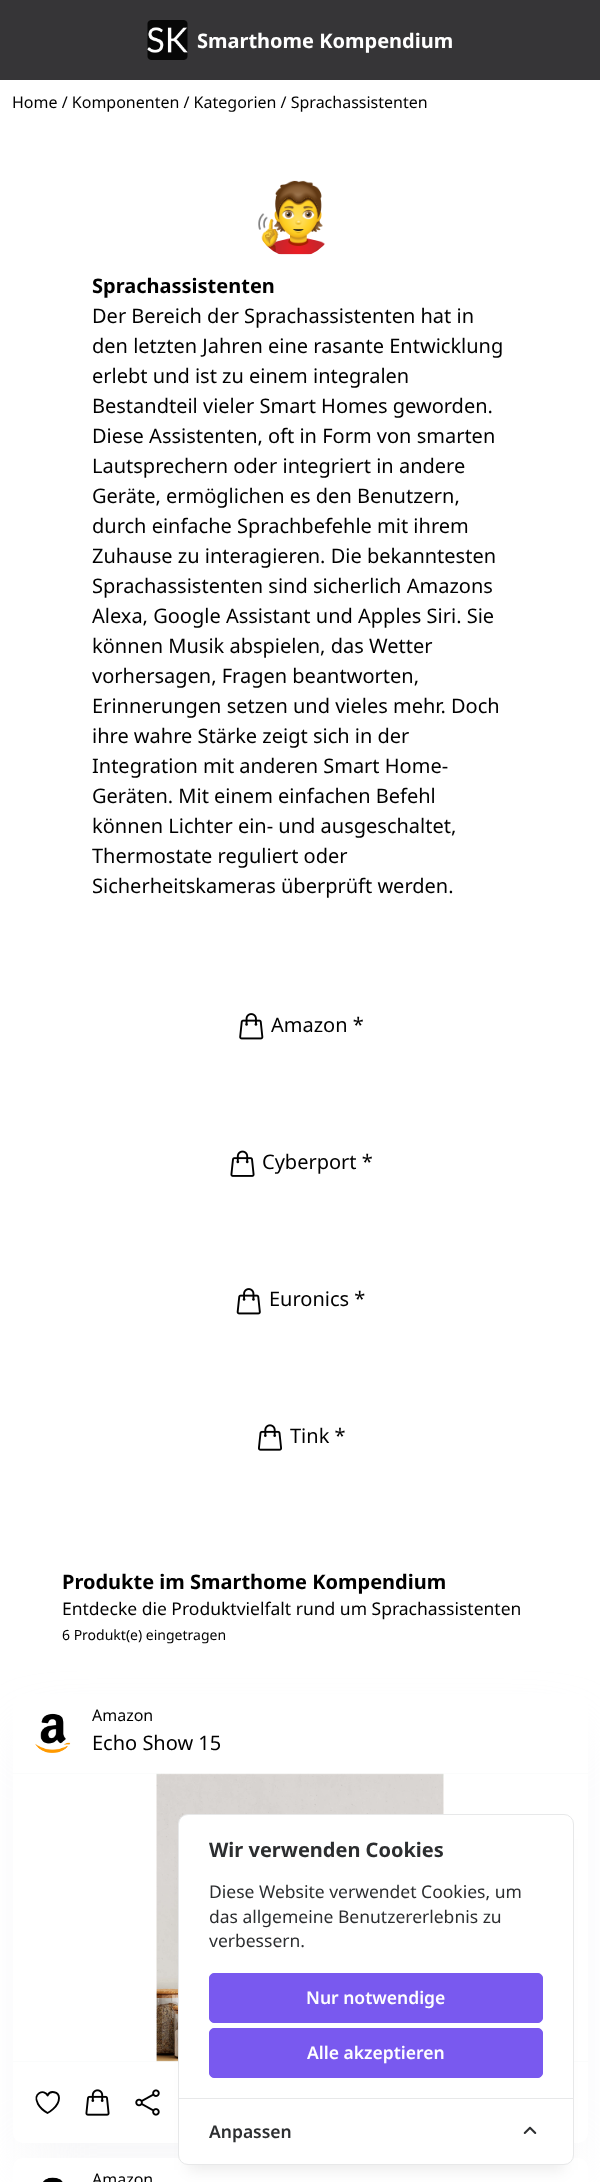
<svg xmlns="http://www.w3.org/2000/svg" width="600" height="2182">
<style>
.a{font:bold 20px Noto Sans;fill:#fff}
.b{font:16px Noto Sans;fill:#000}
.c{font:bold 20px Noto Sans;fill:#000}
.d{font:20px Noto Sans;fill:#000}
.e{font:17.5px Noto Sans;fill:#000}
.f{font:14px Noto Sans;fill:#000}
.g{font:bold 20px Noto Sans;fill:#2c2e30}
.h{font:17.5px Noto Sans;fill:#2c2e30}
.i{font:600 17.5px Noto Sans;fill:#fff}
.j{font:600 17.5px Noto Sans;fill:#2c2e30}
</style>
<rect width="100%" height="100%" fill="#fff"/>
<path fill="#363537" d="M0 0h600v80H0z"/>
<image href="1.png" x="147" y="20" width="41" height="40"/>
<image href="2.png" x="258" y="180" width="67" height="75"/>
<image href="3.png" x="239" y="1013" width="25" height="27"/>
<image href="4.png" x="230" y="1150" width="25" height="27"/>
<image href="5.png" x="236" y="1288" width="25" height="27"/>
<image href="6.png" x="258" y="1424" width="24" height="27"/>
<path fill="#e5e7eb66" filter="blur(31px)" d="M28 1740h545v419H28z"/>
<rect fill="#fff" x="13" y="1694" width="575" height="449" rx="10"/>
<path fill="#fbfcfc" d="M13 1773h575v1H13z"/>
<image href="7.png" x="35" y="1713" width="36" height="40"/>
<path fill="#fbfcfc" d="M13 2061h575v1H13z"/>
<image href="8.png" x="156" y="1773" width="288" height="289"/>
<path fill="none" stroke="#000" stroke-width="1.9" stroke-linecap="round" stroke-linejoin="round" d="M59 2098c0-6.5-9-8-11.5-2.5c-3-7-15.5-2.5-9.5 8.5c2 3.5 6 7 9.5 9c0 0 11.5-6 11.5-15z"/>
<image href="9.png" x="85" y="2089" width="25" height="27"/>
<image href="10.png" x="135" y="2089" width="25" height="27"/>
<rect fill="#fff" x="13" y="2158" width="575" height="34" rx="10"/>
<image href="11.png" x="43" y="2177" width="20" height="5"/>
<path fill="#00000014" filter="blur(7.5px)" d="M188 1839h376v331H188z"/>
<rect fill="#fff" stroke="#e7e8e9" x="178.5" y="1814.5" width="395" height="350" rx="9.5"/>
<rect fill="#7959ef" stroke="#7959ef" x="209.5" y="1973.5" width="333" height="49" rx="4.5"/>
<rect fill="#7959ef" stroke="#7959ef" x="209.5" y="2028.5" width="333" height="49" rx="4.5"/>
<path fill="#e7e8e9" d="M179 2098h394v1H179z"/>
<image href="12.png" x="523" y="2126" width="14" height="8"/>
<text class="a" x="197" y="48">Smarthome Kompendium</text>
<text class="b" x="12" y="108">Home / Komponenten / Kategorien / Sprachassistenten</text>
<text class="c" x="92" y="293">Sprachassistenten</text>
<text class="d" x="92" y="323">Der Bereich der Sprachassistenten hat in</text>
<text class="d" x="92" y="353">den letzten Jahren eine rasante Entwicklung</text>
<text class="d" x="92" y="383">erlebt und ist zu einem integralen</text>
<text class="d" x="92" y="413">Bestandteil vieler Smart Homes geworden.</text>
<text class="d" x="92" y="443">Diese Assistenten, oft in Form von smarten</text>
<text class="d" x="92" y="473">Lautsprechern oder integriert in andere</text>
<text class="d" x="92" y="503">Geräte, ermöglichen es den Benutzern,</text>
<text class="d" x="92" y="533">durch einfache Sprachbefehle mit ihrem</text>
<text class="d" x="92" y="563">Zuhause zu interagieren. Die bekanntesten</text>
<text class="d" x="92" y="593">Sprachassistenten sind sicherlich Amazons</text>
<text class="d" x="92" y="623">Alexa, Google Assistant und Apples Siri. Sie</text>
<text class="d" x="92" y="653">können Musik abspielen, das Wetter</text>
<text class="d" x="92" y="683">vorhersagen, Fragen beantworten,</text>
<text class="d" x="92" y="713">Erinnerungen setzen und vieles mehr. Doch</text>
<text class="d" x="92" y="743">ihre wahre Stärke zeigt sich in der</text>
<text class="d" x="92" y="773">Integration mit anderen Smart Home-</text>
<text class="d" x="92" y="803">Geräten. Mit einem einfachen Befehl</text>
<text class="d" x="92" y="833">können Lichter ein- und ausgeschaltet,</text>
<text class="d" x="92" y="863">Thermostate reguliert oder</text>
<text class="d" x="92" y="893">Sicherheitskameras überprüft werden.</text>
<text class="d" x="271" y="1032">Amazon *</text>
<text class="d" x="262" y="1169">Cyberport *</text>
<text class="d" x="269" y="1306">Euronics *</text>
<text class="d" x="290" y="1443">Tink *</text>
<text class="c" x="62" y="1589">Produkte im Smarthome Kompendium</text>
<text class="e" x="62" y="1615">Entdecke die Produktvielfalt rund um Sprachassistenten</text>
<text class="f" x="62" y="1640">6 Produkt(e) eingetragen</text>
<text class="b" x="92" y="1721">Amazon</text>
<text class="d" x="92" y="1750">Echo Show 15</text>
<text class="b" x="92" y="2185">Amazon</text>
<text class="g" x="209" y="1857">Wir verwenden Cookies</text>
<text class="h" x="209" y="1898">Diese Website verwendet Cookies, um</text>
<text class="h" x="209" y="1923">das allgemeine Benutzererlebnis zu</text>
<text class="h" x="209" y="1947">verbessern.</text>
<text class="i" x="306" y="2004">Nur notwendige</text>
<text class="i" x="307" y="2059">Alle akzeptieren</text>
<text class="j" x="209" y="2138">Anpassen</text>
</svg>
